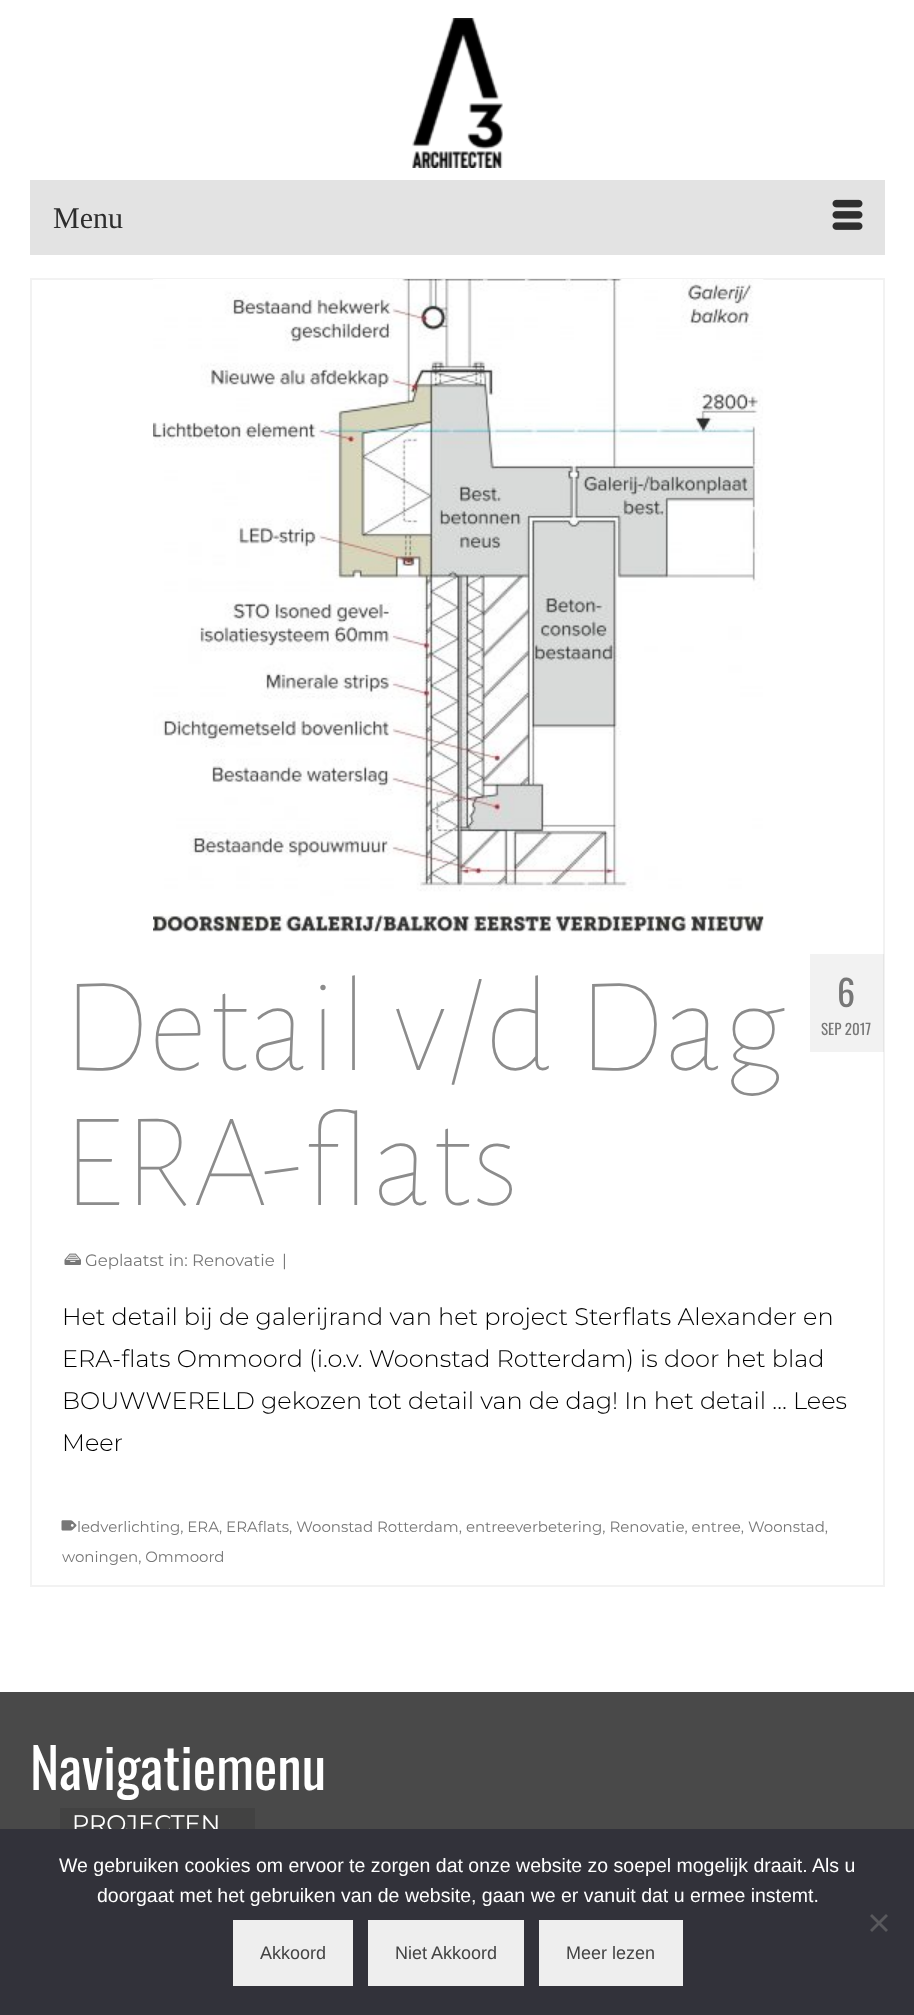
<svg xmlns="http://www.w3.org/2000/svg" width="914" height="2015">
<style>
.a{font:30px Liberation Serif;fill:#2d2d2d}
.b{font:100 135px Alegreya Sans;fill:#8c8c8c}
.c{font:16.5px Montserrat;fill:#777}
.d{font:36px Oswald;fill:#777}
.e{font:15px Oswald;fill:#777}
.f{font:300 24px Montserrat;fill:#000}
.g{font:15px Montserrat;fill:#777}
.h{font:55.5px Oswald;fill:#fff}
.i{font:24px Montserrat;fill:#fff}
.j{font:19.5px Liberation Sans;fill:#fff}
.k{font:18px Liberation Sans;fill:#444}
</style>
<rect width="100%" height="100%" fill="#fff"/>
<image href="1.png" x="412" y="18" width="91" height="150"/>
<path fill="#e3e3e3" d="M30 180h855v75H30z"/>
<image href="2.png" x="832" y="199" width="31" height="31"/>
<path fill="none" stroke="#f2f2f2" stroke-width="2" d="M31 279h853v1307H31z"/>
<image href="3.png" x="153" y="279" width="611" height="653"/>
<image href="4.png" x="64" y="1253" width="17" height="12"/>
<path fill="#0000000d" d="M810 954h74v98H810z"/>
<image href="5.png" x="61" y="1520" width="16" height="11"/>
<path fill="#494949" d="M0 1692h914v137H0z"/>
<path fill="#424242" d="M60 1808h195v21H60z"/>
<text class="a" x="53" y="228">Menu</text>
<text class="b" x="62" y="1070">Detail v/d Dag</text>
<text class="b" x="62" y="1205">ERA-flats</text>
<text class="c" x="85" y="1266">Geplaatst in: Renovatie</text>
<text class="c" x="282" y="1266">|</text>
<text class="d" x="837" y="1007">6</text>
<text class="e" x="821" y="1035">SEP 2017</text>
<text class="f" x="62" y="1325">Het detail bij de galerijrand van het project Sterflats Alexander en</text>
<text class="f" x="62" y="1367">ERA-flats Ommoord (i.o.v. Woonstad Rotterdam) is door het blad</text>
<text class="f" x="62" y="1409">BOUWWERELD gekozen tot detail van de dag! In het detail … Lees</text>
<text class="f" x="62" y="1451">Meer</text>
<text class="g" x="77" y="1532">ledverlichting, ERA</text>
<text class="g" x="219" y="1532">, ERAflats, Woonstad Rotterdam, entreeverbetering, Renovatie, entree, Woonstad,</text>
<text class="g" x="62" y="1562">woningen, Ommoord</text>
<text class="h" x="30" y="1790">Navigatiemenu</text>
<text class="i" x="72" y="1832">PROJECTEN</text>
<path fill="#32323a" d="M0 1829h914v186H0z"/>
<text class="j" x="59" y="1872">We gebruiken cookies om ervoor te zorgen dat onze website zo soepel mogelijk draait. Als u</text>
<text class="j" x="97" y="1902">doorgaat met het gebruiken van de website, gaan we er vanuit dat u ermee instemt.</text>
<path fill="#59595d" d="M886 1914l2 2l-16 16l-2-2z"/>
<path fill="#59595d" d="M870 1916l2-2l16 16l-2 2z"/>
<path fill="#eee" d="M233 1920h120v66H233z"/>
<text class="k" x="260" y="1959">Akkoord</text>
<path fill="#eee" d="M368 1920h156v66H368z"/>
<text class="k" x="395" y="1959">Niet Akkoord</text>
<path fill="#eee" d="M539 1920h144v66H539z"/>
<text class="k" x="566" y="1959">Meer lezen</text>
</svg>
